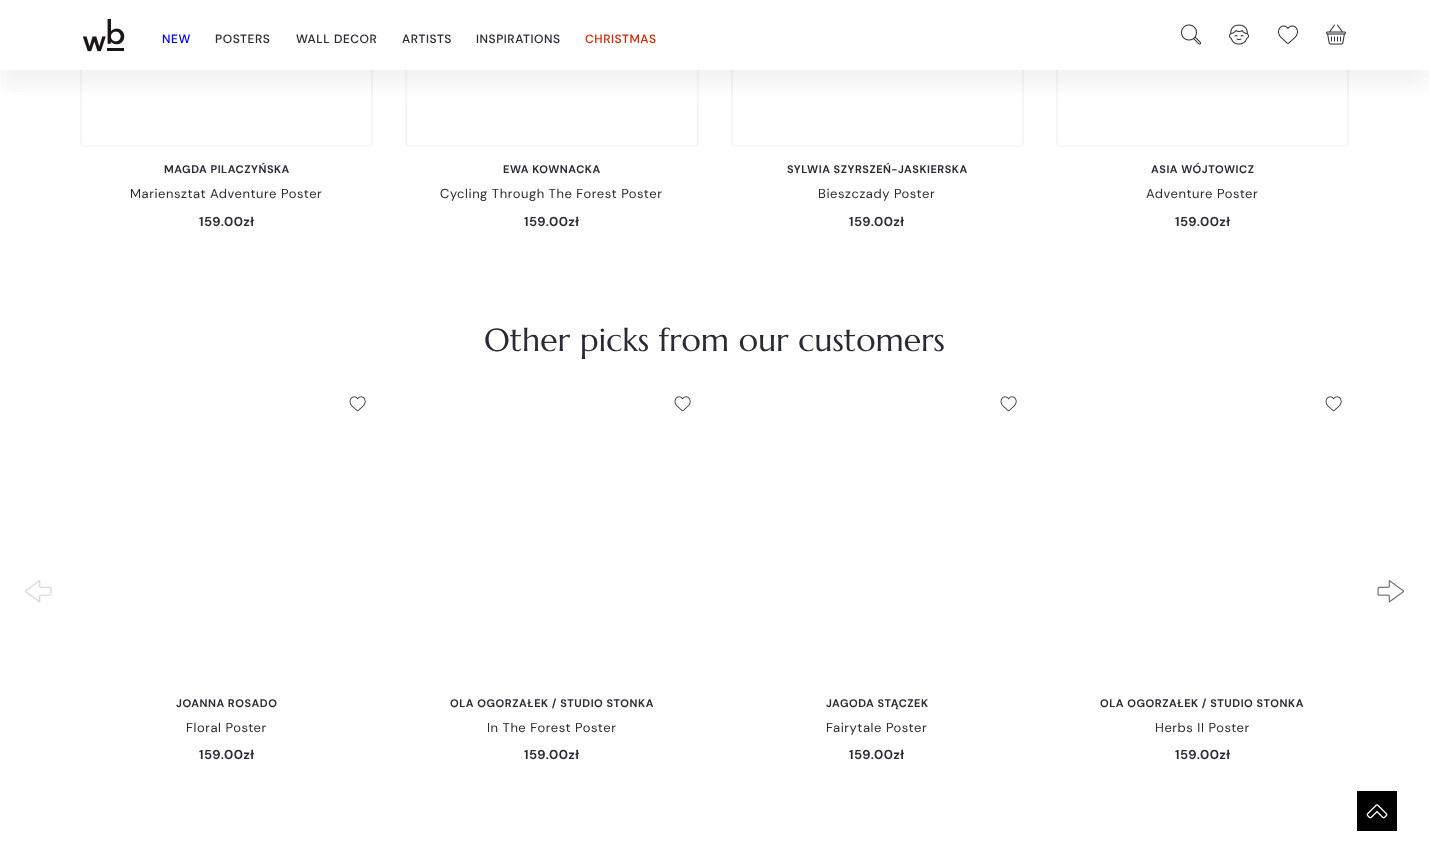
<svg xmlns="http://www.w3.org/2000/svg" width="1429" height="863">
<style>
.a{font:500 12px DM Sans;letter-spacing:0.55px;fill:#00f}
.b{font:500 12px DM Sans;letter-spacing:0.55px;fill:#292a33}
.c{font:500 12px DM Sans;letter-spacing:0.55px;fill:#d32600}
.d{font:bold 11px DM Sans;letter-spacing:0.55px;fill:#292a33}
.e{font:13px DM Sans;letter-spacing:0.55px;fill:#292a33}
.f{font:bold 13px DM Sans;letter-spacing:0.55px;fill:#292a33}
.g{font:32px Marcellus;fill:#292a33}
</style>
<rect width="100%" height="100%" fill="#fff"/>
<rect fill="none" stroke="#f6f6f9" stroke-width="2" x="81" y="-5" width="291" height="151" rx="3"/>
<rect fill="none" stroke="#f6f6f9" stroke-width="2" x="406" y="-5" width="292" height="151" rx="3"/>
<rect fill="none" stroke="#f6f6f9" stroke-width="2" x="732" y="-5" width="291" height="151" rx="3"/>
<rect fill="none" stroke="#f6f6f9" stroke-width="2" x="1057" y="-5" width="291" height="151" rx="3"/>
<path fill="#56586614" filter="blur(10px)" d="M0 16h1429v70H0z"/>
<path fill="#fff" d="M0 0h1429v70H0z"/>
<image href="1.png" x="82" y="18" width="43" height="34"/>
<image href="2.png" x="1181" y="24" width="20" height="21"/>
<image href="3.png" x="1229" y="24" width="20" height="21"/>
<image href="4.png" x="1278" y="25" width="20" height="19"/>
<image href="5.png" x="1326" y="24" width="20" height="21"/>
<image href="6.png" x="25" y="580" width="27" height="23"/>
<image href="7.png" x="1377" y="580" width="28" height="23"/>
<image href="8.png" x="349" y="396" width="17" height="16"/>
<image href="8.png" x="674" y="396" width="17" height="16"/>
<image href="8.png" x="1000" y="396" width="17" height="16"/>
<image href="8.png" x="1325" y="396" width="17" height="16"/>
<path fill="#000" d="M1357 791h40v40H1357z"/>
<image href="9.png" x="1366" y="804" width="22" height="15"/>
<text class="a" x="162" y="43">NEW</text>
<text class="b" x="215" y="43">POSTERS</text>
<text class="b" x="296" y="43">WALL DECOR</text>
<text class="b" x="402" y="43">ARTISTS</text>
<text class="b" x="476" y="43">INSPIRATIONS</text>
<text class="c" x="585" y="43">CHRISTMAS</text>
<text class="d" x="164" y="173">MAGDA PILACZYŃSKA</text>
<text class="e" x="130" y="198">Mariensztat Adventure Poster</text>
<text class="f" x="199" y="226">159.00zł</text>
<text class="d" x="503" y="173">EWA KOWNACKA</text>
<text class="e" x="440" y="198">Cycling Through The Forest Poster</text>
<text class="f" x="524" y="226">159.00zł</text>
<text class="d" x="787" y="173">SYLWIA SZYRSZEŃ-JASKIERSKA</text>
<text class="e" x="818" y="198">Bieszczady Poster</text>
<text class="f" x="849" y="226">159.00zł</text>
<text class="d" x="1151" y="173">ASIA WÓJTOWICZ</text>
<text class="e" x="1146" y="198">Adventure Poster</text>
<text class="f" x="1175" y="226">159.00zł</text>
<text class="g" x="484" y="351">Other picks from our customers</text>
<text class="d" x="176" y="707">JOANNA ROSADO</text>
<text class="e" x="186" y="732">Floral Poster</text>
<text class="f" x="199" y="759">159.00zł</text>
<text class="d" x="450" y="707">OLA OGORZAŁEK / STUDIO STONKA</text>
<text class="e" x="487" y="732">In The Forest Poster</text>
<text class="f" x="524" y="759">159.00zł</text>
<text class="d" x="826" y="707">JAGODA STĄCZEK</text>
<text class="e" x="826" y="732">Fairytale Poster</text>
<text class="f" x="849" y="759">159.00zł</text>
<text class="d" x="1100" y="707">OLA OGORZAŁEK / STUDIO STONKA</text>
<text class="e" x="1155" y="732">Herbs II Poster</text>
<text class="f" x="1175" y="759">159.00zł</text>
</svg>
